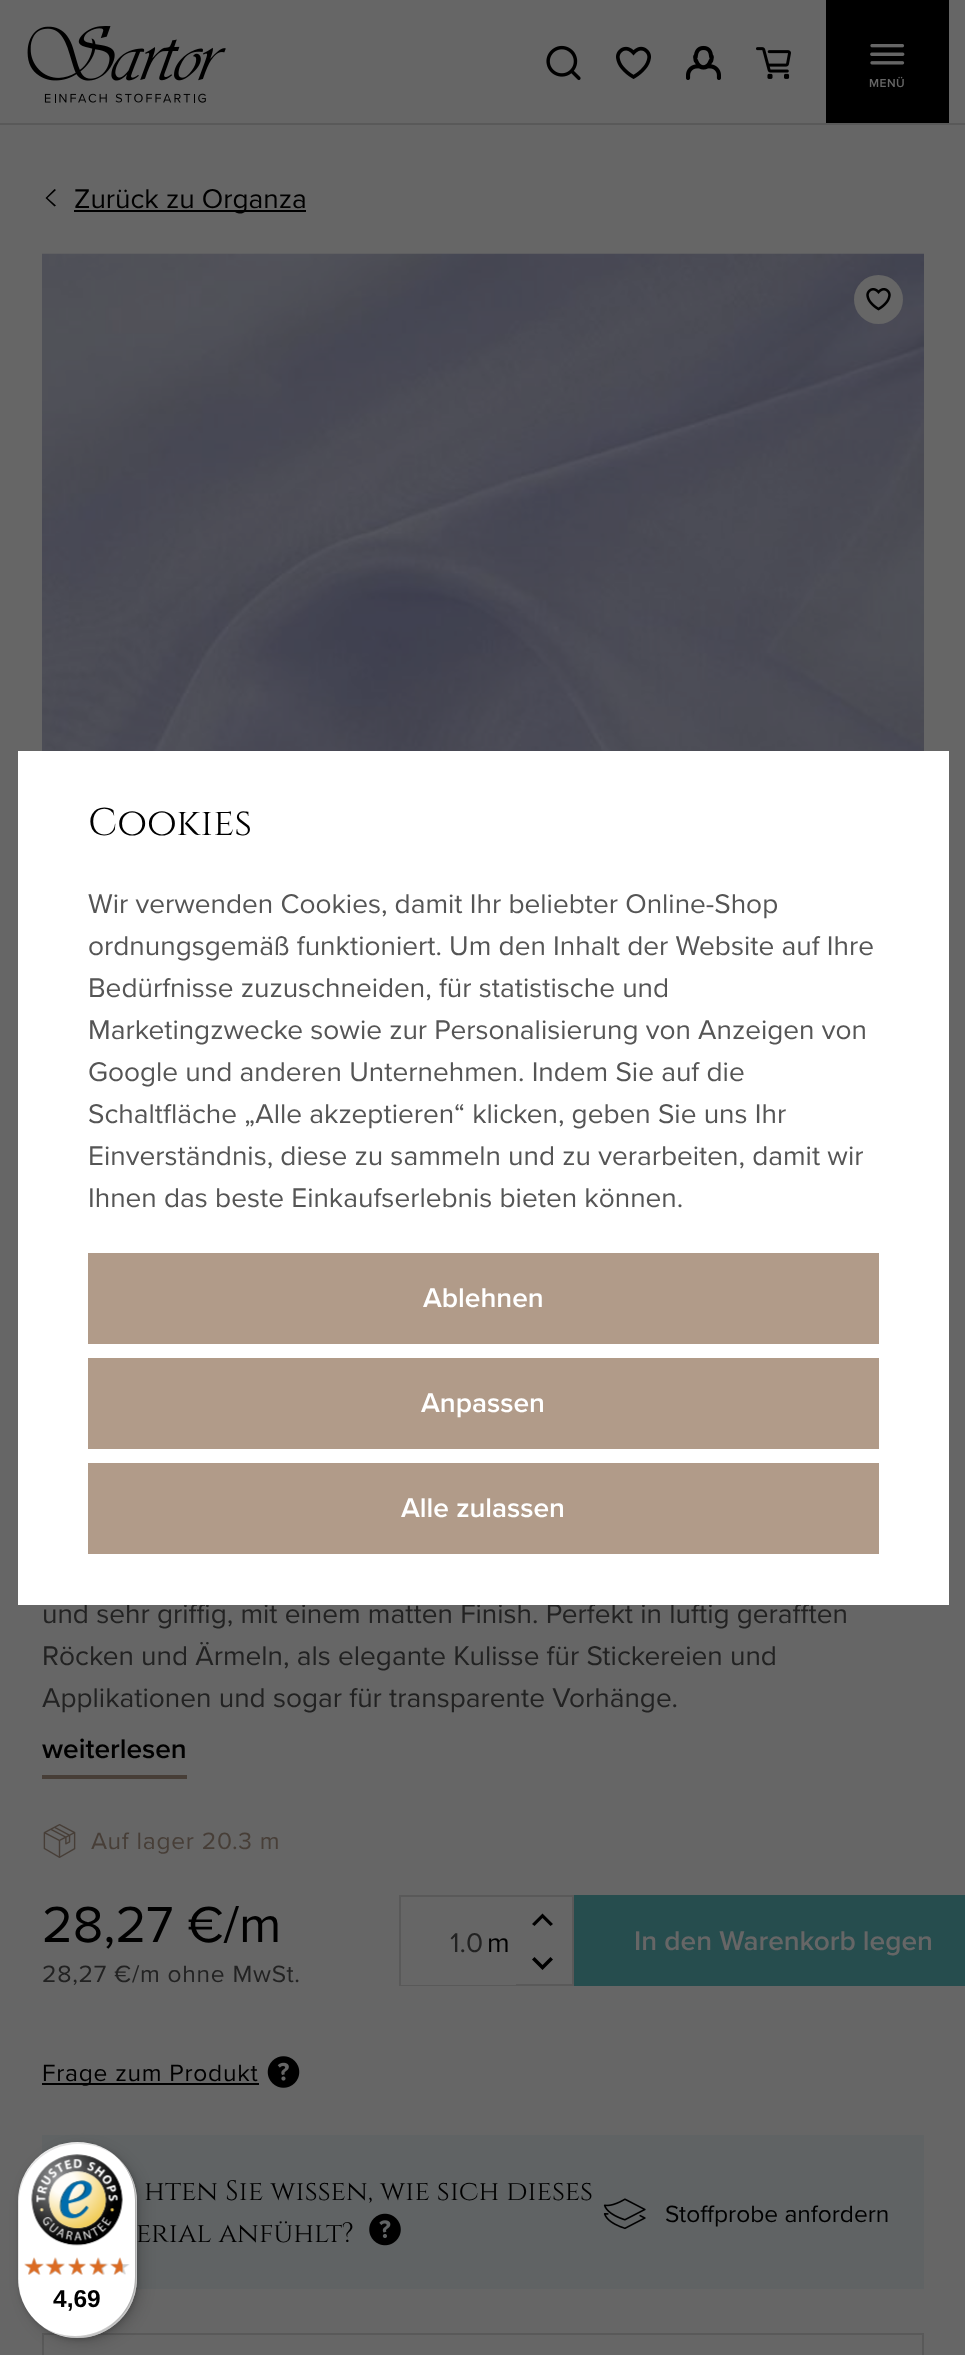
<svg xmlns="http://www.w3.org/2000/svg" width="965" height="2355">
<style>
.a{font:600 12px Proxima Nova;letter-spacing:0.5px;fill:#666}
.b{font:28px Proxima Nova;fill:#000}
.c{font:28px Proxima Nova;fill:#222}
.d{font:600 28px Proxima Nova;fill:#000}
.e{font:24.5px Proxima Nova;letter-spacing:0.75px;fill:#473e37}
.f{font:52.5px Proxima Nova;fill:#000}
.g{font:24.5px Proxima Nova;letter-spacing:0.75px;fill:#222}
.h{font:600 28px Proxima Nova;fill:#666}
.i{font:24.5px Proxima Nova;letter-spacing:0.75px;fill:#000}
.j{font:28px Cinzel;fill:#000}
.k{font:24.5px Proxima Nova;fill:#000}
.l{font:38.5px Cinzel;fill:#000}
.m{font:28px Proxima Nova;fill:#555}
.n{font:600 28px Proxima Nova;fill:#fff}
.o{font:bold 24.5px Liberation Sans;fill:#000}
</style>
<rect width="100%" height="100%" fill="#666"/>
<path fill="#595959" d="M0 123h965v2H0z"/>
<image href="1.png" x="27" y="26" width="199" height="77"/>
<image href="2.png" x="546" y="45" width="35" height="36"/>
<image href="3.png" x="616" y="46" width="35" height="33"/>
<image href="4.png" x="686" y="45" width="35" height="35"/>
<image href="5.png" x="756" y="47" width="35" height="32"/>
<path fill="#000" d="M826 0h123v123H826z"/>
<image href="6.png" x="870" y="44" width="35" height="21"/>
<path fill="#000" d="M56 190l-8.5 8l8.5 7.5l-1.5 1l-9-8.5l9-9z"/>
<path fill="#000" d="M74 210h232v2H74z"/>
<image href="7.png" x="42" y="253" width="882" height="498"/>
<circle fill="#666" cx="878.5" cy="299.5" r="24.5"/>
<image href="8.png" x="866" y="288" width="25" height="23"/>
<path fill="#473e37" d="M42 1775h145v4H42z"/>
<image href="9.png" x="43" y="1824" width="33" height="34"/>
<path fill="none" stroke="#595959" stroke-width="2" d="M400 1896h173v89H400z"/>
<path fill="#666" d="M401 1984h115v1H401z"/>
<path fill="#000" d="M532 1924l2.5 2l8-8l8 8l2.5-2l-10.5-10.5zm21 35.5l-2.5-2.5l-8 8l-8-8l-2.5 2.5l10.5 10.5z"/>
<path fill="#264d4e" d="M574 1895h391v91H574z"/>
<path fill="#000" d="M42 2083h217v2H42z"/>
<image href="10.png" x="267" y="2056" width="33" height="32"/>
<path fill="#606364" d="M42 2135h882v154H42z"/>
<image href="11.png" x="369" y="2213" width="32" height="33"/>
<image href="12.png" x="603" y="2198" width="43" height="32"/>
<path fill="#595959" d="M42 2333h882v2H42z"/>
<path fill="#595959" d="M924 2333v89l-2-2v-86z"/>
<path fill="#595959" d="M42 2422v-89l2 1v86z"/>
<rect fill="#00000026" filter="blur(7px)" x="23" y="2147" width="119" height="196" rx="59.5"/>
<rect fill="#00000026" filter="blur(2px)" x="19" y="2144" width="119" height="196" rx="59.5"/>
<rect fill="#fff" x="18" y="2142" width="119" height="196" rx="59.5"/>
<path fill="#0000001a" d="M79 2144c19 0 36 9 47 22c-11-14-29-24-48-24c-33 0-60 27-60 60v76c0 13 4 24 10 34c-6-9-9-20-9-32v-77c0-33 27-59 60-59z"/>
<path fill="#00000033" d="M41 2325c10 8 23 13 37 13c32 0 59-27 59-60v-76c0-20-9-36-23-47c13 11 21 27 21 45v77c0 33-27 59-60 59c-13 0-25-4-34-11z"/>
<path fill="#32323233" d="M44 2328c10 6 21 10 34 10c32 0 59-27 59-60v-76c0-23-12-42-30-52c17 10 28 29 28 50v77c0 33-26 60-59 60c-12 0-23-3-32-9z"/>
<path fill="#ffffff4d" d="M40 2325c10 8 23 13 38 13c32 0 59-27 59-60v-76c0-21-11-39-27-50c16 11 26 29 26 49v77c0 32-27 59-60 59c-14 0-26-5-36-12z"/>
<image href="13.png" x="31" y="2154" width="92" height="92"/>
<image href="14.png" x="24" y="2258" width="20" height="17"/>
<image href="15.png" x="47" y="2257" width="18" height="18"/>
<image href="16.png" x="68" y="2258" width="18" height="17"/>
<image href="17.png" x="89" y="2257" width="20" height="18"/>
<image href="18.png" x="110" y="2258" width="20" height="17"/>
<image href="19.png" x="24" y="2257" width="20" height="18"/>
<image href="20.png" x="45" y="2257" width="20" height="18"/>
<image href="21.png" x="68" y="2257" width="18" height="18"/>
<image href="22.png" x="89" y="2257" width="18" height="18"/>
<image href="23.png" x="110" y="2257" width="13" height="18"/>
<text class="a" x="869" y="87">MENÜ</text>
<text class="b" x="74" y="208">Zurück zu Organza</text>
<text class="c" x="42" y="1623">und sehr griffig, mit einem matten Finish. Perfekt in luftig gerafften</text>
<text class="c" x="42" y="1665">Röcken und Ärmeln, als elegante Kulisse für Stickereien und</text>
<text class="c" x="42" y="1707">Applikationen und sogar für transparente Vorhänge.</text>
<text class="d" x="42" y="1758">weiterlesen</text>
<text class="e" x="91" y="1849">Auf lager 20.3 m</text>
<text class="f" x="42" y="1942">28,27 €/m</text>
<text class="g" x="42" y="1982">28,27 €/m ohne MwSt.</text>
<text class="c" x="450" y="1952">1.0</text>
<text class="b" x="487" y="1952">m</text>
<text class="h" x="634" y="1950">In den Warenkorb legen</text>
<text class="i" x="42" y="2081">Frage zum Produkt</text>
<text class="j" x="144" y="2200">hten Sie wissen, wie sich dieses</text>
<text class="j" x="136" y="2242">erial anfühlt?</text>
<text class="k" x="665" y="2222">Stoffprobe anfordern</text>
<path fill="#fff" d="M18 751h931v854H18z"/>
<text class="l" x="88" y="835">Cookies</text>
<text class="m" x="88" y="913">Wir verwenden Cookies, damit Ihr beliebter Online-Shop</text>
<text class="m" x="88" y="955">ordnungsgemäß funktioniert. Um den Inhalt der Website auf Ihre</text>
<text class="m" x="88" y="997">Bedürfnisse zuzuschneiden, für statistische und</text>
<text class="m" x="88" y="1039">Marketingzwecke sowie zur Personalisierung von Anzeigen von</text>
<text class="m" x="88" y="1081">Google und anderen Unternehmen. Indem Sie auf die</text>
<text class="m" x="88" y="1123">Schaltfläche „Alle akzeptieren“ klicken, geben Sie uns Ihr</text>
<text class="m" x="88" y="1165">Einverständnis, diese zu sammeln und zu verarbeiten, damit wir</text>
<text class="m" x="88" y="1207">Ihnen das beste Einkaufserlebnis bieten können.</text>
<path fill="#b19b89" d="M88 1253h791v91H88z"/>
<text class="n" x="423" y="1307">Ablehnen</text>
<path fill="#b19b89" d="M88 1358h791v91H88z"/>
<text class="n" x="421" y="1412">Anpassen</text>
<path fill="#b19b89" d="M88 1463h791v91H88z"/>
<text class="n" x="401" y="1517">Alle zulassen</text>
<text class="o" x="53" y="2307">4,69</text>
</svg>
